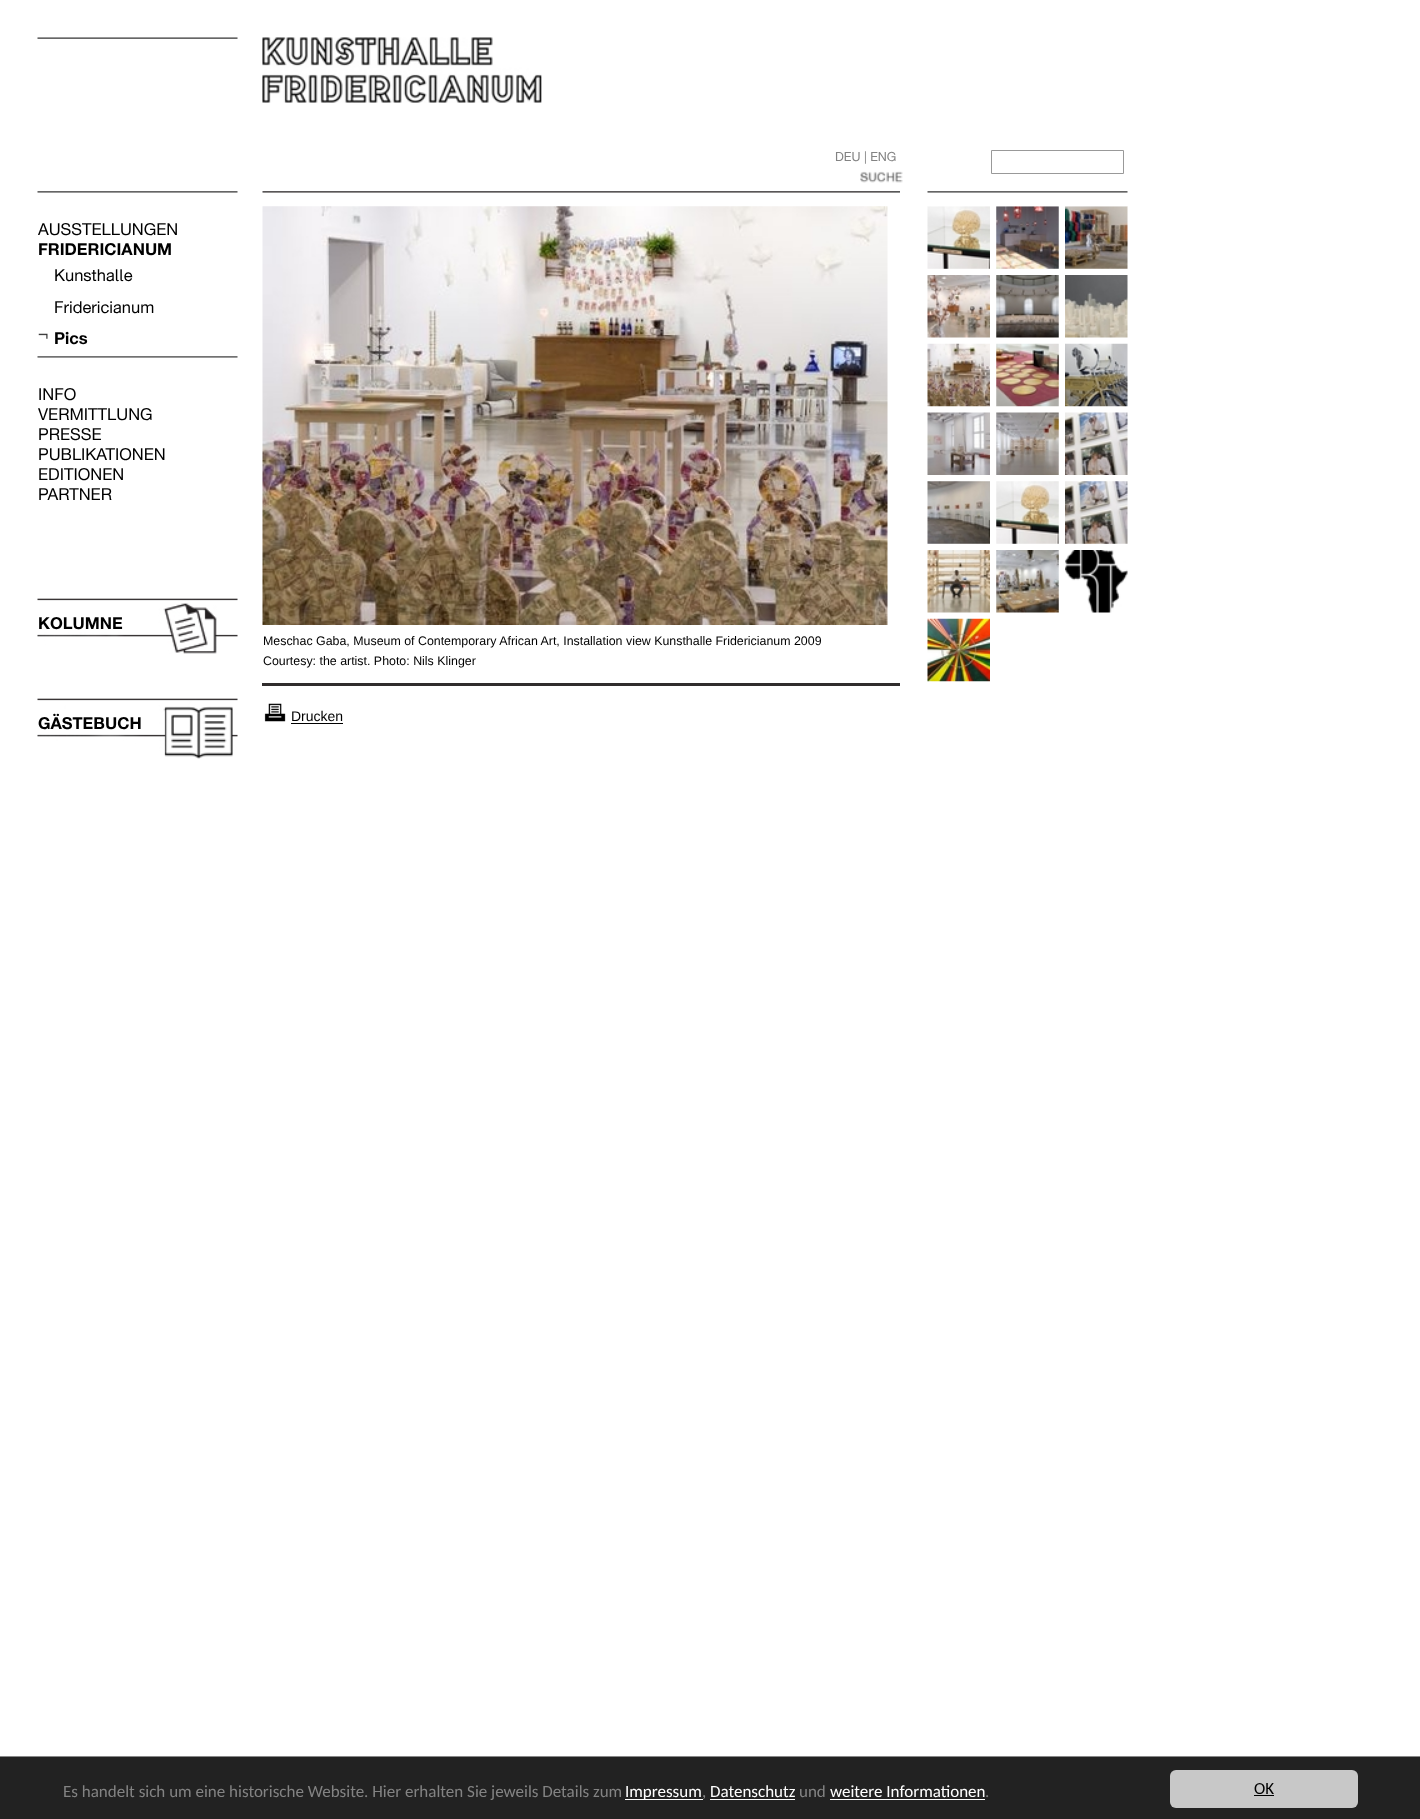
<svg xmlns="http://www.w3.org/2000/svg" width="1420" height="1819">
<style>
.a{font:12.5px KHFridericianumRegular;fill:#838383}
.b{font:16.5px KHFridericianumRegular;fill:#000}
.c{font:bold 16.5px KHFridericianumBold;fill:#000}
.d{font:12.4px Liberation Sans;fill:#000}
.e{font:14px Liberation Sans;fill:#000}
.f{font:17px Carlito;fill:#838383}
.g{font:17px Carlito;fill:#fff}
.h{font:17px Carlito;fill:#000}
</style>
<rect width="100%" height="100%" fill="#fff"/>
<image href="1.png" x="37" y="37" width="201" height="2"/>
<image href="2.png" x="262" y="37" width="280" height="66"/>
<image href="3.png" x="860" y="171" width="43" height="12"/>
<path fill="none" stroke="#999" d="M991.5 150.5h132v23H991.5z"/>
<image href="4.png" x="37" y="191" width="201" height="2"/>
<image href="5.png" x="38" y="333" width="10" height="6"/>
<image href="6.png" x="37" y="356" width="201" height="2"/>
<image href="7.png" x="37" y="598" width="201" height="56"/>
<image href="8.png" x="37" y="698" width="201" height="61"/>
<image href="9.png" x="262" y="191" width="638" height="2"/>
<image href="10.png" x="262" y="206" width="626" height="419"/>
<path fill="#302d2d" d="M262 683h638v3H262z"/>
<image href="11.png" x="264" y="703" width="22" height="19"/>
<path fill="#000" d="M291 723h52v1H291z"/>
<image href="13.png" x="927" y="206" width="63" height="63"/>
<image href="14.png" x="996" y="206" width="63" height="63"/>
<image href="15.png" x="1065" y="206" width="63" height="63"/>
<image href="12.png" x="927" y="191" width="201" height="16"/>
<image href="16.png" x="927" y="275" width="63" height="63"/>
<image href="17.png" x="996" y="275" width="63" height="63"/>
<image href="18.png" x="1065" y="275" width="63" height="63"/>
<image href="19.png" x="927" y="343" width="63" height="64"/>
<image href="20.png" x="996" y="343" width="63" height="64"/>
<image href="21.png" x="1065" y="343" width="63" height="64"/>
<image href="22.png" x="927" y="412" width="63" height="63"/>
<image href="23.png" x="996" y="412" width="63" height="63"/>
<image href="24.png" x="1065" y="412" width="63" height="63"/>
<image href="25.png" x="927" y="481" width="63" height="63"/>
<image href="26.png" x="996" y="481" width="63" height="63"/>
<image href="27.png" x="1065" y="481" width="63" height="63"/>
<image href="28.png" x="927" y="550" width="63" height="63"/>
<image href="29.png" x="996" y="550" width="63" height="63"/>
<image href="30.png" x="1065" y="550" width="63" height="63"/>
<image href="31.png" x="927" y="618" width="63" height="64"/>
<path fill="#222" d="M0 1757h1420v62H0z"/>
<path fill="#888" d="M0 1756h1420v1H0z"/>
<path fill="#fff" d="M625 1799h78v1H625z"/>
<path fill="#fff" d="M710 1799h85v1H710z"/>
<path fill="#fff" d="M830 1799h155v1H830z"/>
<rect fill="#c8c8c8" x="1170" y="1770" width="188" height="38" rx="6"/>
<path fill="#000" d="M1254 1795h20v1H1254z"/>
<text class="a" x="835" y="161">DEU | ENG</text>
<text class="b" x="38" y="235">AUSSTELLUNGEN</text>
<text class="c" x="38" y="255">FRIDERICIANUM</text>
<text class="b" x="54" y="281">Kunsthalle</text>
<text class="b" x="54" y="313">Fridericianum</text>
<text class="c" x="54" y="344">Pics</text>
<text class="b" x="38" y="400">INFO</text>
<text class="b" x="38" y="420">VERMITTLUNG</text>
<text class="b" x="38" y="440">PRESSE</text>
<text class="b" x="38" y="460">PUBLIKATIONEN</text>
<text class="b" x="38" y="480">EDITIONEN</text>
<text class="b" x="38" y="500">PARTNER</text>
<text class="c" x="38" y="629">KOLUMNE</text>
<text class="c" x="38" y="729">GÄSTEBUCH</text>
<text class="d" x="263" y="645">Meschac Gaba, Museum of Contemporary African Art, Installation view Kunsthalle Fridericianum 2009</text>
<text class="d" x="263" y="665">Courtesy: the artist. Photo: Nils Klinger</text>
<text class="e" x="291" y="721">Drucken</text>
<text class="f" x="63" y="1797">Es handelt sich um eine historische Website. Hier erhalten Sie jeweils Details zum</text>
<text class="g" x="625" y="1797">Impressum</text>
<text class="f" x="702" y="1797">,</text>
<text class="g" x="710" y="1797">Datenschutz</text>
<text class="f" x="799" y="1797">und</text>
<text class="g" x="830" y="1797">weitere Informationen</text>
<text class="f" x="985" y="1797">.</text>
<text class="h" x="1254" y="1794">OK</text>
</svg>
